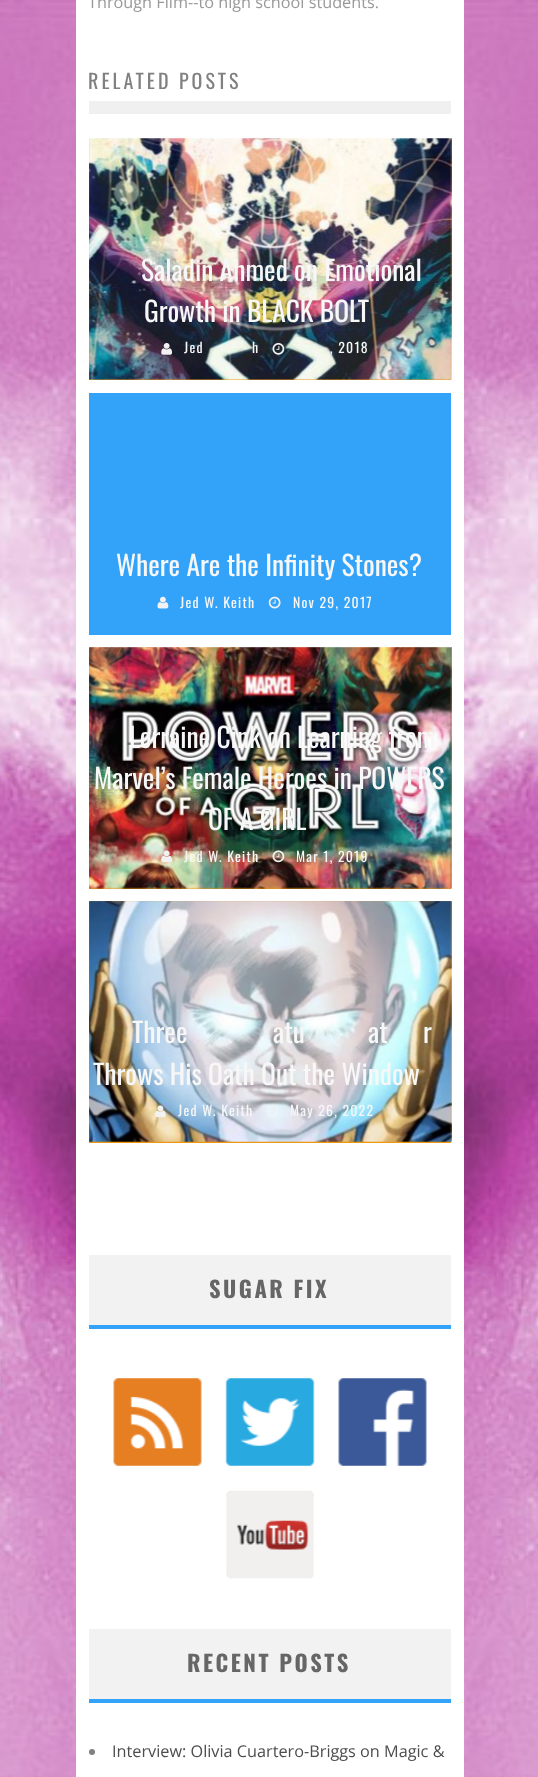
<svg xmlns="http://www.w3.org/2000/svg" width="538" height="1777">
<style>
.a{font:16.25px Open Sans;fill:#999}
.b{font:20px Oswald;letter-spacing:3px;fill:#808080}
.c{font:27.5px Oswald;fill:#f7f7f7}
.d{font:13.75px Oswald;letter-spacing:1.25px;fill:#f7f7f7}
.e{font:bold 22.5px Oswald;letter-spacing:2.5px;fill:#666}
.f{font:16.25px Open Sans;fill:#4d4d4d}
</style>
<rect width="100%" height="100%" fill="#fff"/>
<image href="1.png" x="0" y="0" width="538" height="1777"/>
<path fill="#fff" d="M76 0h388v1777H76z"/>
<path fill="#f0f0f0" d="M89 101h362v13H89z"/>
<path fill="#eb9812" d="M89 139h362v241H89z"/>
<image href="2.png" x="89" y="138" width="363" height="242"/>
<image href="3.png" x="161" y="343" width="12" height="12"/>
<image href="4.png" x="272" y="342" width="13" height="13"/>
<path fill="#33a3fa" d="M89 393h362v242H89z"/>
<image href="5.png" x="157" y="596" width="12" height="13"/>
<image href="6.png" x="268" y="596" width="13" height="13"/>
<path fill="#eb9812" d="M89 648h362v241H89z"/>
<image href="7.png" x="89" y="647" width="363" height="242"/>
<image href="8.png" x="161" y="850" width="11" height="13"/>
<image href="9.png" x="272" y="850" width="13" height="13"/>
<path fill="#eb9812" d="M89 901h362v242H89z"/>
<image href="10.png" x="89" y="901" width="363" height="241"/>
<image href="11.png" x="155" y="1105" width="11" height="13"/>
<image href="12.png" x="266" y="1105" width="12" height="12"/>
<path fill="#f2f2f2" d="M89 1255h362v70H89z"/>
<path fill="#33a3fa" d="M89 1325h362v4H89z"/>
<image href="13.png" x="113" y="1378" width="89" height="88"/>
<image href="14.png" x="225" y="1378" width="90" height="88"/>
<image href="15.png" x="338" y="1378" width="89" height="88"/>
<image href="16.png" x="226" y="1490" width="88" height="89"/>
<path fill="#f2f2f2" d="M89 1629h362v70H89z"/>
<path fill="#33a3fa" d="M89 1699h362v4H89z"/>
<circle fill="#808080" cx="92" cy="1752" r="3"/>
<text class="a" x="88" y="8">Through Film--to high school students.</text>
<text class="b" x="88" y="89">RELATED POSTS</text>
<text class="c" x="141" y="281">Saladin Ahmed on Emotional</text>
<text class="c" x="144" y="322">Growth in BLACK BOLT</text>
<text class="d" x="184" y="353">Jed</text>
<text class="d" x="252" y="353">h</text>
<text class="d" x="330" y="353">, 2018</text>
<text class="c" x="116" y="576">Where Are the Infinity Stones?</text>
<text class="d" x="180" y="608">Jed W. Keith</text>
<text class="d" x="293" y="608">Nov 29, 2017</text>
<text class="c" x="129" y="748">Lorraine Cink on Learning from</text>
<text class="c" x="94" y="789">Marvel’s Female Heroes in POWERS</text>
<text class="c" x="208" y="830">OF A GIRL</text>
<text class="d" x="184" y="862">Jed W. Keith</text>
<text class="d" x="296" y="862">Mar 1, 2019</text>
<text class="c" x="132" y="1043">Three</text>
<text class="c" x="273" y="1043">atu</text>
<text class="c" x="368" y="1043">at</text>
<text class="c" x="423" y="1043">r</text>
<text class="c" x="93" y="1085">Throws His Oath Out the Window</text>
<text class="d" x="178" y="1116">Jed W. Keith</text>
<text class="d" x="290" y="1116">May 26, 2022</text>
<text class="e" x="209" y="1298">SUGAR FIX</text>
<text class="e" x="187" y="1672">RECENT POSTS</text>
<text class="f" x="112" y="1757">Interview: Olivia Cuartero-Briggs on Magic &amp;</text>
</svg>
